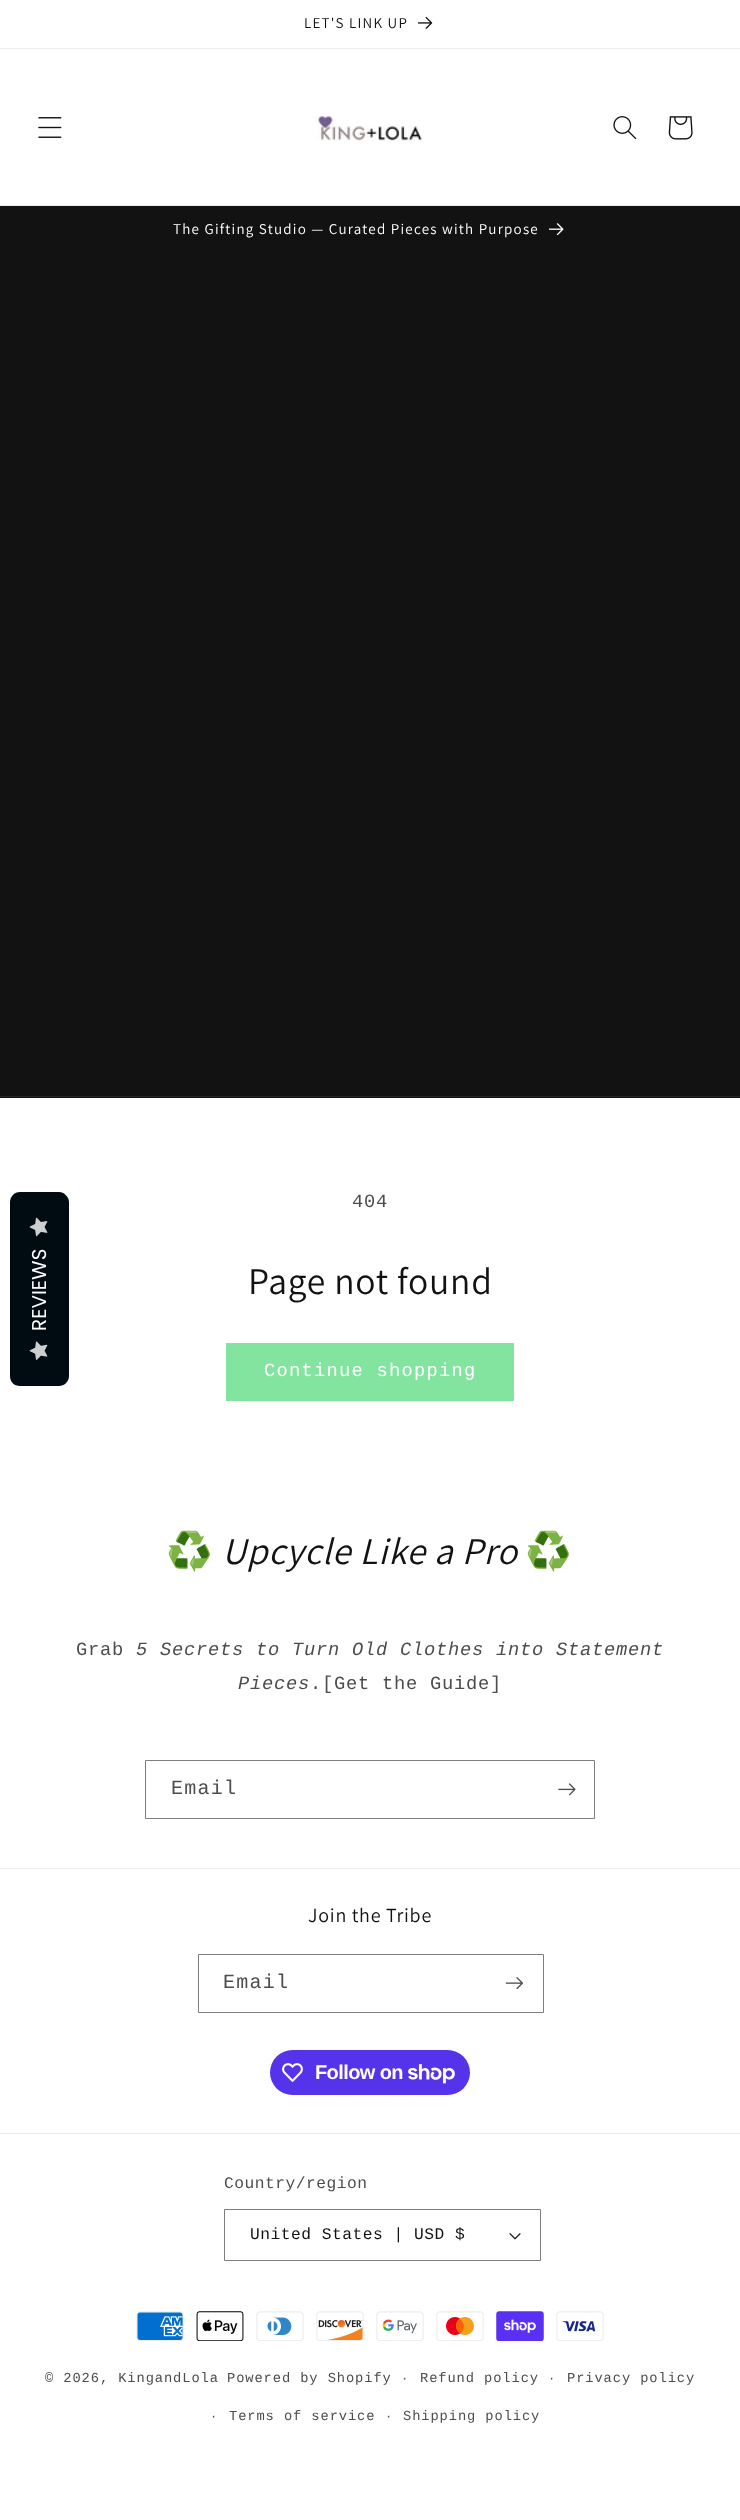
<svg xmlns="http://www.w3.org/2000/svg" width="740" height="2520">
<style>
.a{font:15px Assistant;letter-spacing:1.25px;fill:#121212}
.b{font:15px Assistant;letter-spacing:1.25px;fill:#fff}
.c{font:20px Poppins;fill:#fff}
.d{font:18.75px Liberation Mono;letter-spacing:0.75px;fill:#4d4d4d}
.e{font:37.5px Assistant;letter-spacing:0.75px;fill:#121212}
.f{font:18.75px Liberation Mono;letter-spacing:1.25px;fill:#fff}
.g{font:37.5px Noto Color Emoji;letter-spacing:0.75px;fill:#121212}
.h{font:italic 37.5px Assistant;letter-spacing:0.75px;fill:#121212}
.i{font:italic 18.75px Liberation Mono;letter-spacing:0.75px;fill:#4d4d4d}
.j{font:20px Liberation Mono;letter-spacing:1.25px;fill:#4d4d4d}
.k{font:20px Assistant;letter-spacing:0.75px;fill:#121212}
.l{font:bold 20px Liberation Sans;letter-spacing:-0.6px;fill:#fff}
.m{font:16.25px Liberation Mono;letter-spacing:0.5px;fill:#4d4d4d}
.n{font:16.25px Liberation Mono;letter-spacing:0.5px;fill:#121212}
.o{font:13.75px Liberation Mono;letter-spacing:0.9px;fill:#4d4d4d}
.p{font:12px Liberation Mono;letter-spacing:0.9px;fill:#4d4d4d}
</style>
<rect width="100%" height="100%" fill="#fff"/>
<path fill="#ececec" d="M0 48h740v1H0z"/>
<image href="1.png" x="418" y="16" width="15" height="13"/>
<path fill="#ececec" d="M0 205h740v1H0z"/>
<image href="2.png" x="38" y="117" width="24" height="21"/>
<image href="3.png" x="314" y="115" width="110" height="26"/>
<image href="4.png" x="613" y="116" width="24" height="24"/>
<image href="5.png" x="668" y="116" width="25" height="24"/>
<path fill="#121212" d="M0 206h740v892H0z"/>
<path fill="#252525" d="M0 1096h740v1H0z"/>
<image href="6.png" x="549" y="223" width="15" height="12"/>
<path fill="#000c11" d="M10 1376v-174c0-5 4-10 10-10h39c5 0 10 5 10 10v174c0 6-5 10-10 10h-39c-6 0-10-4-10-10z"/>
<image href="7.png" x="29" y="1217" width="19" height="20"/>
<image href="8.png" x="29" y="1341" width="19" height="19"/>
<path fill="#83e49f" d="M226 1343h288v58H226z"/>
<path fill="none" stroke="#7d7d7d" d="M145.5 1760.5h449v58H145.5z"/>
<image href="9.png" x="558" y="1783" width="18" height="13"/>
<path fill="#ececec" d="M0 1868h740v1H0z"/>
<path fill="none" stroke="#7d7d7d" d="M198.5 1954.5h345v58H198.5z"/>
<image href="10.png" x="505" y="1977" width="18" height="13"/>
<rect fill="#5433eb" x="270" y="2050" width="200" height="45" rx="22.5"/>
<image href="11.png" x="282" y="2063" width="21" height="19"/>
<image href="12.png" x="408" y="2064" width="47" height="20"/>
<path fill="#ececec" d="M0 2133h740v1H0z"/>
<image href="13.png" x="509" y="2233" width="12" height="7"/>
<path fill="none" stroke="#7d7d7d" d="M224.5 2209.5h316v51H224.5z"/>
<image href="14.png" x="136" y="2311" width="48" height="30"/>
<image href="15.png" x="196" y="2311" width="48" height="30"/>
<image href="16.png" x="256" y="2311" width="48" height="30"/>
<image href="17.png" x="316" y="2311" width="48" height="30"/>
<image href="18.png" x="376" y="2311" width="48" height="30"/>
<image href="19.png" x="436" y="2311" width="48" height="30"/>
<image href="20.png" x="496" y="2311" width="48" height="30"/>
<image href="21.png" x="556" y="2311" width="48" height="30"/>
<text class="a" x="304" y="28">LET'S LINK UP</text>
<text class="b" x="173" y="234">The Gifting Studio — Curated Pieces with Purpose</text>
<text class="c" x="46" y="1331" transform="rotate(-90 46 1331)">REVIEWS</text>
<text class="d" x="352" y="1207">404</text>
<text class="e" x="248" y="1294">Page not found</text>
<text class="f" x="264" y="1376">Continue shopping</text>
<text class="g" x="166" y="1564">♻️</text>
<text class="h" x="222" y="1564">Upcycle Like a Pro</text>
<text class="g" x="525" y="1564">♻️</text>
<text class="d" x="76" y="1655">Grab</text>
<text class="i" x="136" y="1655">5 Secrets to Turn Old Clothes into Statement</text>
<text class="i" x="238" y="1689">Pieces</text>
<text class="d" x="310" y="1689">.[Get the Guide]</text>
<text class="j" x="171" y="1794">Email</text>
<text class="k" x="308" y="1922">Join the Tribe</text>
<text class="j" x="223" y="1988">Email</text>
<text class="l" x="315" y="2079">Follow on</text>
<text class="m" x="224" y="2188">Country/region</text>
<text class="n" x="250" y="2239">United States | USD $</text>
<text class="o" x="45" y="2382">© 2026, KingandLola</text>
<text class="p" x="401" y="2382">·</text>
<text class="o" x="420" y="2382">Refund policy</text>
<text class="p" x="548" y="2382">·</text>
<text class="o" x="567" y="2382">Privacy policy</text>
<text class="p" x="210" y="2420">·</text>
<text class="o" x="229" y="2420">Terms of service</text>
<text class="p" x="385" y="2420">·</text>
<text class="o" x="403" y="2420">Shipping policy</text>
<text class="o" x="227" y="2382">Powered by Shopify</text>
</svg>
